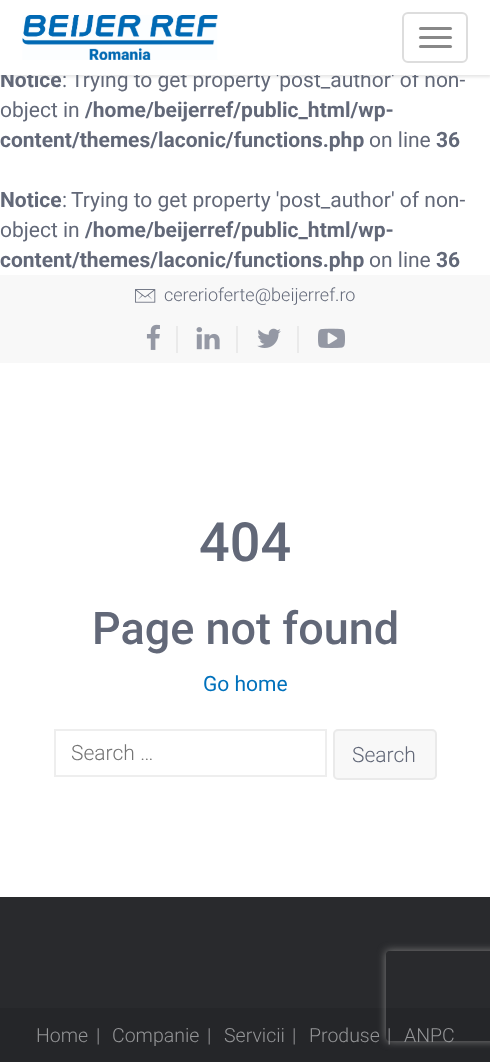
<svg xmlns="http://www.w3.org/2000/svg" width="490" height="1062">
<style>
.a{font:bold 21px Roboto;fill:#626878}
.b{font:21px Roboto;fill:#626878}
.c{font:300 18px Roboto;fill:#626878}
.d{font:500 54px Roboto;fill:#626878}
.e{font:500 45px Roboto;fill:#626878}
.f{font:21px Roboto;fill:#0071bc}
.g{font:300 21px Roboto;fill:#757575}
.h{font:300 21px Roboto;fill:#626878}
.i{font:300 19.5px Roboto;fill:#949597}
</style>
<defs>
<clipPath id="clip1"><path d="M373 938h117v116h-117zm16 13h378c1.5 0 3 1.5 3 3v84c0 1.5-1.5 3-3 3h-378c-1.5 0-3-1.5-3-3v-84c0-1.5 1.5-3 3-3z" clip-rule="evenodd"/></clipPath>
</defs>
<rect width="100%" height="100%" fill="#fff"/>
<path fill="#0000001a" filter="blur(1.5px)" d="M0 2h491v75H0z"/>
<path fill="#f8f8f8" d="M0 275h490v88H0z"/>
<image href="2.png" x="135" y="289" width="21" height="14"/>
<image href="3.png" x="146" y="324" width="14" height="26"/>
<path fill="#eaeaea" d="M176 326h2v27H176z"/>
<image href="4.png" x="196" y="327" width="24" height="23"/>
<path fill="#eaeaea" d="M236 326h2v27H236z"/>
<image href="5.png" x="257" y="328" width="24" height="20"/>
<path fill="#eaeaea" d="M297 326h2v27H297z"/>
<image href="6.png" x="318" y="328" width="27" height="20"/>
<path fill="none" stroke="#eee" stroke-width="2" d="M55 730h271v46H55z"/>
<rect fill="#f8f8f8" stroke="#eaeaea" stroke-width="2" x="334" y="730" width="102" height="49" rx="4"/>
<path fill="#292a2d" d="M0 897h490v111H0z"/>
<path fill="#252629" d="M0 1008h490v54H0z"/>
<g clip-path="url(#clip1)">
<rect fill="#808080" filter="blur(4px)" x="386" y="951" width="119" height="90" rx="3"/>
</g>
<text class="a" x="0" y="87">Notice</text>
<text class="b" x="62" y="87">:</text>
<text class="b" x="71" y="87">Trying to get property 'post_author' of non-</text>
<text class="b" x="0" y="117">object in</text>
<text class="a" x="85" y="117">/home/beijerref/public_html/wp-</text>
<text class="a" x="0" y="147">content/themes/laconic/functions.php</text>
<text class="b" x="369" y="147">on line</text>
<text class="a" x="436" y="147">36</text>
<text class="a" x="0" y="207">Notice</text>
<text class="b" x="62" y="207">:</text>
<text class="b" x="71" y="207">Trying to get property 'post_author' of non-</text>
<text class="b" x="0" y="237">object in</text>
<text class="a" x="85" y="237">/home/beijerref/public_html/wp-</text>
<text class="a" x="0" y="267">content/themes/laconic/functions.php</text>
<text class="b" x="369" y="267">on line</text>
<text class="a" x="436" y="267">36</text>
<path fill="#fff" d="M0 0h490v75H0z"/>
<image href="1.png" x="22" y="15" width="196" height="45"/>
<rect fill="none" stroke="#ddd" stroke-width="2" x="403" y="13" width="64" height="49" rx="5"/>
<rect fill="#888" x="419" y="27" width="33" height="3" rx="1.5"/>
<rect fill="#888" x="419" y="36" width="33" height="3" rx="1.5"/>
<rect fill="#888" x="419" y="45" width="33" height="3" rx="1.5"/>
<text class="c" x="164" y="301">cererioferte@beijerref.ro</text>
<text class="d" x="199" y="561">404</text>
<text class="e" x="92" y="644">Page not found</text>
<text class="f" x="203" y="691">Go home</text>
<text class="g" x="71" y="760">Search …</text>
<text class="h" x="352" y="762">Search</text>
<text class="i" x="36" y="1042">Home</text>
<text class="i" x="96" y="1042">|</text>
<text class="i" x="112" y="1042">Companie</text>
<text class="i" x="207" y="1042">|</text>
<text class="i" x="224" y="1042">Servicii</text>
<text class="i" x="292" y="1042">|</text>
<text class="i" x="309" y="1042">Produse</text>
<text class="i" x="387" y="1042">|</text>
<text class="i" x="404" y="1042">ANPC</text>
</svg>
